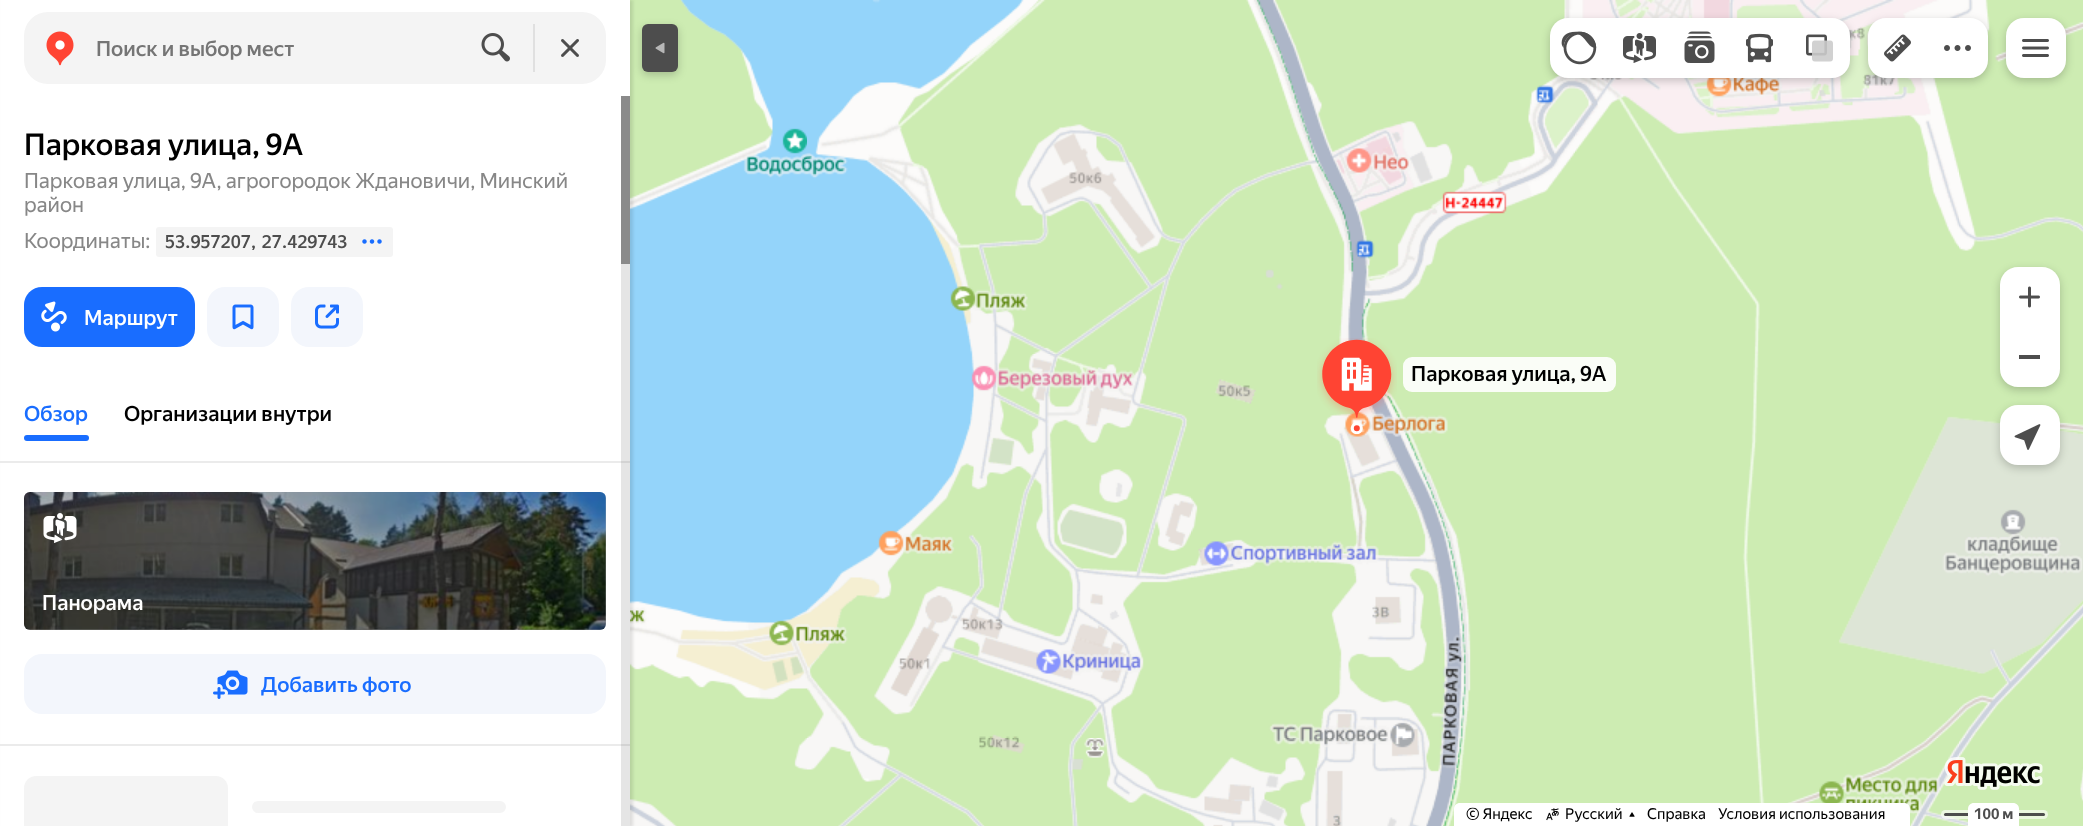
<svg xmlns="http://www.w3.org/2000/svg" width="2083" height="826">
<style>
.a{font:500 21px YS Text;fill:#757575}
.b{font:500 30px YS Text;fill:#000}
.c{font:21px YS Text;fill:#878787}
.d{font:500 18px YS Text;fill:#4d4d4d}
.e{font:500 21px YS Text;fill:#fff}
.f{font:500 21px YS Text;fill:#196dff}
.g{font:500 21px YS Text;fill:#000}
.h{font:15px YS Text;fill:#000}
.i{font:bold 15px YS Text;fill:#4d4d4d}
</style>
<defs>
<linearGradient id="g1" gradientUnits="userSpaceOnUse" x1="-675" y1="77" x2="927" y2="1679"><stop offset="0.6" stop-color="#f4f4f4"/><stop offset="0.78" stop-color="#ebebeb"/><stop offset="0.86" stop-color="#f4f4f4"/></linearGradient>
<linearGradient id="g2" gradientUnits="userSpaceOnUse" x1="-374" y1="54" x2="1132" y2="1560"><stop offset="0.6" stop-color="#f4f4f4"/><stop offset="0.78" stop-color="#ebebeb"/><stop offset="0.86" stop-color="#f4f4f4"/></linearGradient>
</defs>
<rect width="100%" height="100%" fill="#fff"/>
<image href="25.png" x="630" y="0" width="177" height="354"/>
<image href="30.png" x="630" y="354" width="177" height="384"/>
<image href="35.png" x="630" y="738" width="177" height="88"/>
<path fill="#0000001a" filter="blur(1.5px)" d="M3 0h630v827H3z"/>
<rect fill="#00000033" filter="blur(4.5px)" x="642" y="27" width="36" height="48" rx="6"/>
<path fill="#fff" d="M1 0h629v826H1z"/>
<rect fill="#f4f4f4" x="24" y="12" width="582" height="72" rx="24"/>
<image href="1.png" x="46" y="31" width="28" height="35"/>
<image href="2.png" x="481" y="33" width="29" height="29"/>
<path fill="#e0e0e0" d="M533 24h2v48H533z"/>
<image href="3.png" x="561" y="39" width="18" height="18"/>
<image href="27.png" x="1191" y="0" width="384" height="354"/>
<image href="28.png" x="1575" y="0" width="384" height="354"/>
<rect fill="#00000033" filter="blur(4.5px)" x="1550" y="21" width="300" height="60" rx="18"/>
<path fill="#fff" d="M1568 18h42v60h-42c-10 0-18-8-18-18v-24c0-10 8-18 18-18z"/>
<image href="4.png" x="1561" y="31" width="36" height="34"/>
<path fill="#fff" d="M1610 18h180v60H1610z"/>
<image href="5.png" x="1623" y="33" width="33" height="30"/>
<path fill="#fff" d="M1790 18h42c10 0 18 8 18 18v24c0 10-8 18-18 18h-42z"/>
<image href="6.png" x="1806" y="34" width="27" height="28"/>
<image href="7.png" x="1684" y="31" width="31" height="32"/>
<image href="8.png" x="1746" y="33" width="27" height="30"/>
<image href="29.png" x="1959" y="0" width="124" height="354"/>
<rect fill="#00000033" filter="blur(4.5px)" x="1868" y="21" width="120" height="60" rx="18"/>
<path fill="#fff" d="M1886 18h42v60h-42c-10 0-18-8-18-18v-24c0-10 8-18 18-18z"/>
<image href="9.png" x="1884" y="34" width="27" height="28"/>
<path fill="#fff" d="M1928 18h42c10 0 18 8 18 18v24c0 10-8 18-18 18h-42z"/>
<image href="10.png" x="1944" y="45" width="27" height="6"/>
<rect fill="#00000033" filter="blur(4.5px)" x="2006" y="21" width="60" height="60" rx="18"/>
<rect fill="#fff" x="2006" y="18" width="60" height="60" rx="18"/>
<image href="11.png" x="2022" y="39" width="27" height="18"/>
<image href="34.png" x="1959" y="354" width="124" height="384"/>
<rect fill="#00000033" filter="blur(4.5px)" x="2000" y="270" width="60" height="120" rx="18"/>
<path fill="#fff" d="M2018 267h24c10 0 18 8 18 18v42h-60v-42c0-10 8-18 18-18z"/>
<image href="12.png" x="2019" y="286" width="21" height="22"/>
<path fill="#fff" d="M2000 327h60v42c0 10-8 18-18 18h-24c-10 0-18-8-18-18z"/>
<path fill="#4d4d4d" d="M2019 355h21v4H2019z"/>
<rect fill="#00000033" filter="blur(4.5px)" x="2000" y="408" width="60" height="60" rx="18"/>
<rect fill="#fff" x="2000" y="405" width="60" height="60" rx="18"/>
<image href="13.png" x="2014" y="424" width="27" height="26"/>
<rect fill="#4d4d4d" x="642" y="24" width="36" height="48" rx="6"/>
<image href="14.png" x="655" y="42" width="10" height="12"/>
<rect fill="#f4f4f4" x="156" y="227" width="237" height="30" rx="3"/>
<image href="15.png" x="362" y="239" width="20" height="5"/>
<rect fill="#196dff" x="24" y="287" width="171" height="60" rx="18"/>
<image href="16.png" x="41" y="301" width="26" height="31"/>
<rect fill="#f3f6fc" x="207" y="287" width="72" height="60" rx="18"/>
<image href="17.png" x="232" y="304" width="22" height="26"/>
<rect fill="#f3f6fc" x="291" y="287" width="72" height="60" rx="18"/>
<image href="18.png" x="315" y="304" width="24" height="25"/>
<rect fill="#196dff" x="24" y="435" width="65" height="6" rx="3"/>
<path fill="#ebebeb" d="M0 461h630v2H0z"/>
<path fill="#ebebeb" d="M0 744h630v2H0z"/>
<image href="19.png" x="24" y="492" width="582" height="138"/>
<rect fill="#0000004d" x="24" y="492" width="582" height="138" rx="6"/>
<image href="20.png" x="43" y="513" width="34" height="30"/>
<rect fill="#f3f6fc" x="24" y="654" width="582" height="60" rx="18"/>
<image href="21.png" x="213" y="670" width="35" height="29"/>
<path fill="url(#g1)" d="M36 776h180c6.5 0 12 5.5 12 12v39h-204v-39c0-6.5 5.5-12 12-12z"/>
<rect fill="url(#g2)" x="252" y="801" width="254" height="12" rx="6"/>
<path fill="#8a8a8a" d="M621 96h9v168H621z"/>
<path fill="#0000001a" d="M621 264h9v562H621z"/>
<image href="38.png" x="1575" y="738" width="384" height="88"/>
<image href="39.png" x="1959" y="738" width="124" height="88"/>
<image href="22.png" x="1944" y="757" width="99" height="33"/>
<image href="37.png" x="1191" y="738" width="384" height="88"/>
<path fill="#fff" d="M1460 803h444c3.5 0 6 2.5 6 6v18h-456v-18c0-3.5 2.5-6 6-6z"/>
<image href="23.png" x="1546" y="808" width="13" height="13"/>
<image href="24.png" x="1629" y="812" width="6" height="5"/>
<rect fill="#ffffff99" x="1941" y="810" width="107" height="9" rx="4.5"/>
<rect fill="#4d4d4d" x="1944" y="813" width="101" height="3" rx="1.5"/>
<path fill="#fff" d="M1974 803h39c3.5 0 6 2.5 6 6v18h-51v-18c0-3.5 2.5-6 6-6z"/>
<image href="26.png" x="807" y="0" width="384" height="354"/>
<image href="31.png" x="807" y="354" width="384" height="384"/>
<image href="32.png" x="1191" y="354" width="384" height="384"/>
<image href="33.png" x="1575" y="354" width="384" height="384"/>
<image href="36.png" x="807" y="738" width="384" height="88"/>
<image href="40.png" x="1317" y="338" width="80" height="97"/>
<image href="41.png" x="1341" y="357" width="31" height="34"/>
<rect fill="#fafdf7" x="1403" y="357" width="213" height="35" rx="9"/>
<text class="a" x="96" y="56">Поиск и выбор мест</text>
<text class="b" x="24" y="155">Парковая улица, 9А</text>
<text class="c" x="24" y="188">Парковая улица, 9А, агрогородок Ждановичи, Минский</text>
<text class="c" x="24" y="212">район</text>
<text class="c" x="24" y="248">Координаты:</text>
<text class="d" x="165" y="248">53.957207, 27.429743</text>
<text class="e" x="84" y="325">Маршрут</text>
<text class="f" x="24" y="421">Обзор</text>
<text class="g" x="124" y="421">Организации внутри</text>
<text class="e" x="42" y="610">Панорама</text>
<text class="f" x="261" y="692">Добавить фото</text>
<text class="h" x="1466" y="819">© Яндекс</text>
<text class="h" x="1565" y="819">Русский</text>
<text class="h" x="1647" y="819">Справка</text>
<text class="h" x="1718" y="819">Условия использования</text>
<text class="i" x="1974" y="819">100 м</text>
<text class="g" x="1411" y="381">Парковая улица, 9А</text>
</svg>
